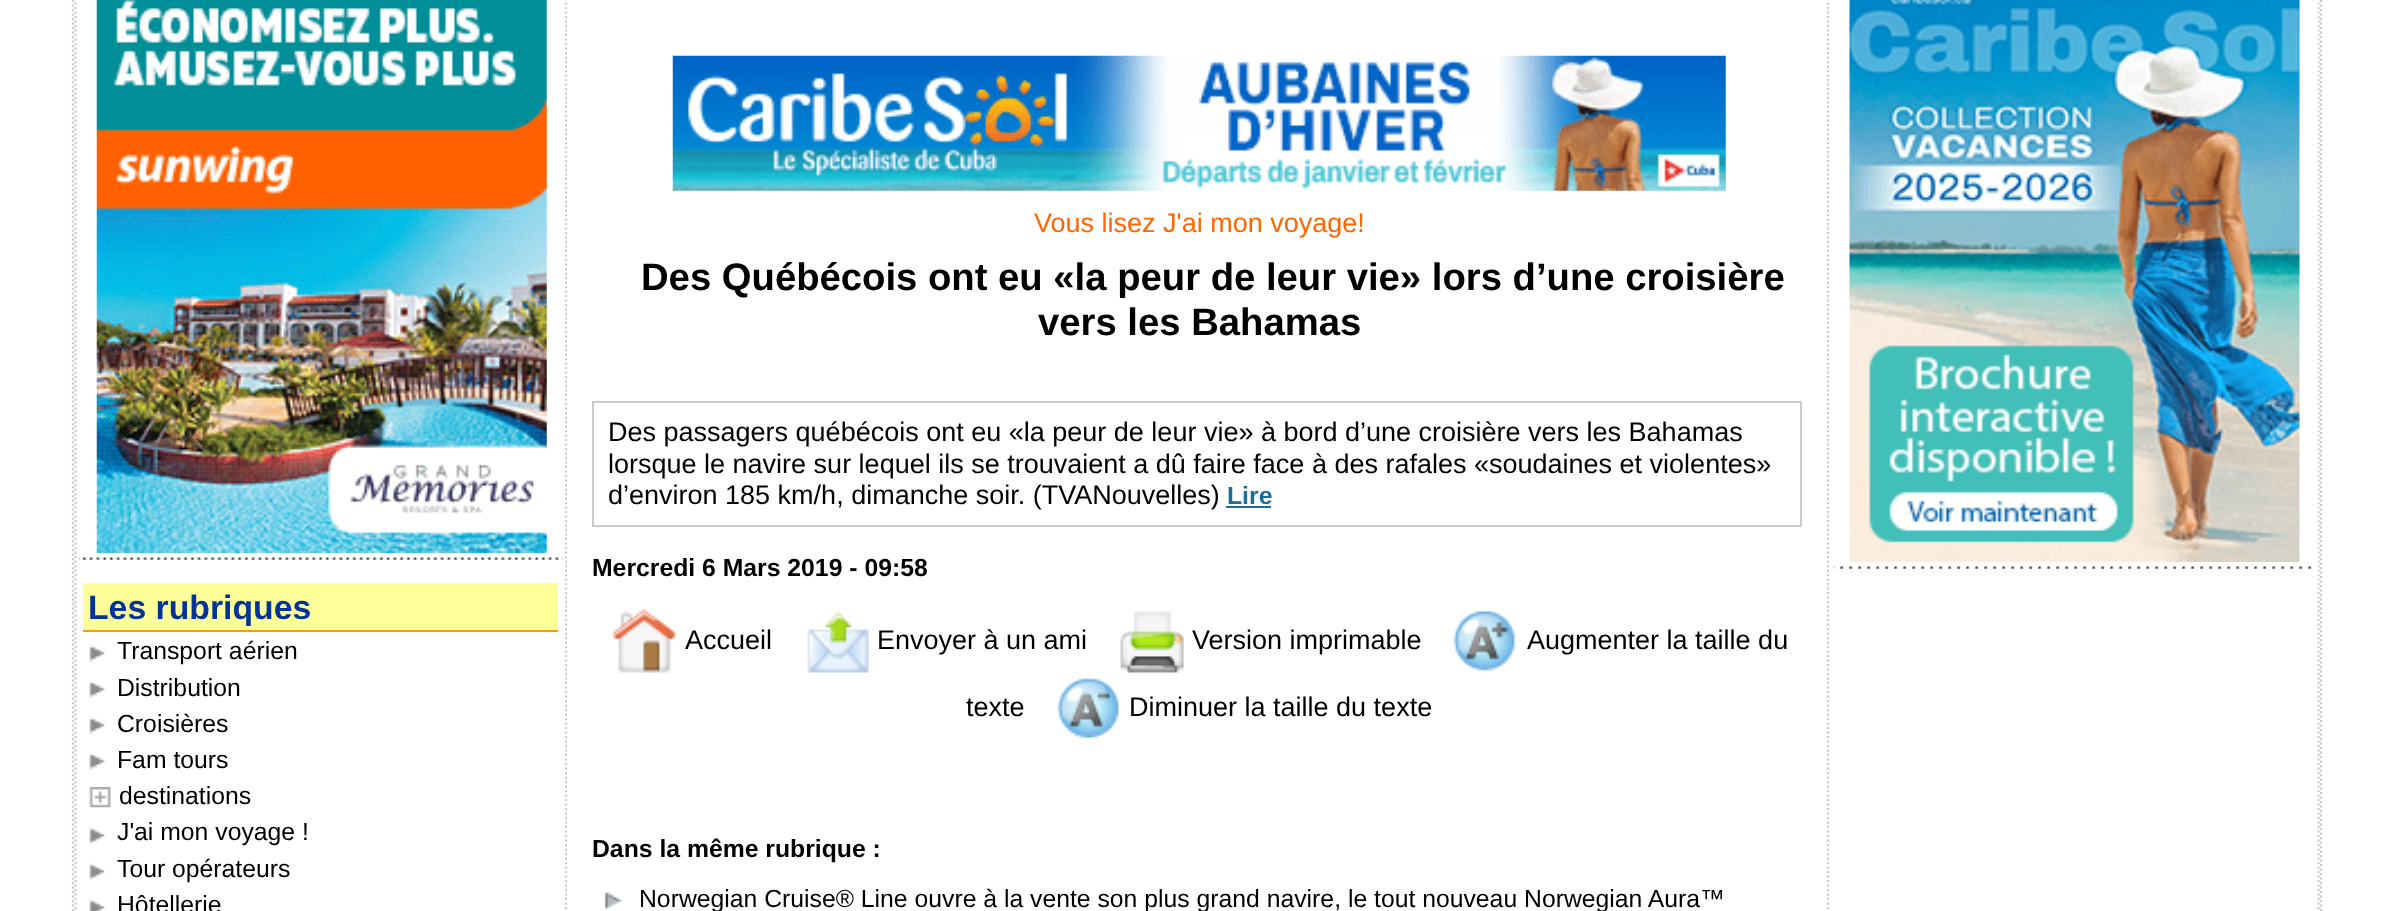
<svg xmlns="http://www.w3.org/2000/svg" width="2392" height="911">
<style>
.a{font:bold 33.75px Liberation Sans;fill:#039}
.b{font:24.75px Liberation Sans;fill:#000}
.c{font:27px Liberation Sans;fill:#f60}
.d{font:bold 38.25px Liberation Sans;fill:#000}
.e{font:27px Liberation Sans;fill:#000}
.f{font:bold 24.75px Liberation Sans;fill:#167099}
.g{font:bold 24.75px Liberation Sans;fill:#000}
</style>
<rect width="100%" height="100%" fill="#fff"/>
<path fill="none" stroke="#ccc" stroke-width="2.2" stroke-dasharray="2.25 2.25" d="M2321-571.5v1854"/>
<path fill="none" stroke="#ccc" stroke-width="2.2" stroke-dasharray="2.25 2.25" d="M73-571.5v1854"/>
<path fill="#fff" d="M74 0h2246v911H74z"/>
<path fill="none" stroke="#ccc" stroke-width="2.2" stroke-dasharray="2.25 2.25" d="M566-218v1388"/>
<path fill="none" stroke="#ccc" stroke-width="2.2" stroke-dasharray="2.25 2.25" d="M75.5-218v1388"/>
<path fill="#fff" d="M564 3h1v906H564z"/>
<image href="1.png" x="96" y="0" width="451" height="553"/>
<image href="2.png" x="78" y="557" width="485" height="3"/>
<path fill="#ff9" d="M83 583h475v47H83z"/>
<path fill="#f90" d="M83 630h475v2H83z"/>
<image href="3.png" x="89" y="645" width="17" height="17"/>
<image href="3.png" x="89" y="681" width="17" height="17"/>
<image href="3.png" x="89" y="717" width="17" height="17"/>
<image href="3.png" x="89" y="753" width="17" height="17"/>
<image href="4.png" x="89" y="787" width="22" height="21"/>
<image href="5.png" x="89" y="827" width="17" height="17"/>
<image href="5.png" x="89" y="863" width="17" height="17"/>
<image href="6.png" x="89" y="899" width="17" height="12"/>
<path fill="#fff" d="M567 3h1v906H567z"/>
<image href="7.png" x="672" y="55" width="1054" height="136"/>
<path fill="none" stroke="#ccc" stroke-width="2" d="M593 402h1208v124H593z"/>
<path fill="#167099" d="M1226 506h45v2H1226z"/>
<image href="8.png" x="611" y="608" width="65" height="65"/>
<image href="9.png" x="807" y="611" width="63" height="62"/>
<image href="10.png" x="1120" y="611" width="64" height="62"/>
<image href="11.png" x="1453" y="611" width="62" height="60"/>
<image href="12.png" x="1057" y="678" width="62" height="61"/>
<image href="13.png" x="604" y="892" width="18" height="18"/>
<path fill="none" stroke="#ccc" stroke-width="2.2" stroke-dasharray="2.25 2.25" d="M2318.5-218v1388"/>
<path fill="none" stroke="#ccc" stroke-width="2.2" stroke-dasharray="2.25 2.25" d="M1828-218v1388"/>
<path fill="#fff" d="M1829 0h489v590H1829z"/>
<image href="14.png" x="1849" y="0" width="451" height="562"/>
<image href="15.png" x="1833" y="566" width="479" height="3"/>
<text class="a" x="88" y="619">Les rubriques</text>
<text class="b" x="117" y="659">Transport aérien</text>
<text class="b" x="117" y="696">Distribution</text>
<text class="b" x="117" y="732">Croisières</text>
<text class="b" x="117" y="768">Fam tours</text>
<text class="b" x="119" y="804">destinations</text>
<text class="b" x="117" y="840">J'ai mon voyage !</text>
<text class="b" x="117" y="877">Tour opérateurs</text>
<text class="b" x="117" y="913">Hôtellerie</text>
<text class="c" x="1034" y="232">Vous lisez J'ai mon voyage!</text>
<text class="d" x="641" y="290">Des Québécois ont eu «la peur de leur vie» lors d’une croisière</text>
<text class="d" x="1038" y="335">vers les Bahamas</text>
<text class="e" x="608" y="441">Des passagers québécois ont eu «la peur de leur vie» à bord d’une croisière vers les Bahamas</text>
<text class="e" x="608" y="473">lorsque le navire sur lequel ils se trouvaient a dû faire face à des rafales «soudaines et violentes»</text>
<text class="e" x="608" y="504">d’environ 185 km/h, dimanche soir. (TVANouvelles)</text>
<text class="f" x="1227" y="504">Lire</text>
<text class="g" x="592" y="576">Mercredi 6 Mars 2019 - 09:58</text>
<text class="e" x="685" y="649">Accueil</text>
<text class="e" x="877" y="649">Envoyer à un ami</text>
<text class="e" x="1192" y="649">Version imprimable</text>
<text class="e" x="1527" y="649">Augmenter la taille du</text>
<text class="e" x="966" y="716">texte</text>
<text class="e" x="1129" y="716">Diminuer la taille du texte</text>
<text class="g" x="592" y="857">Dans la même rubrique :</text>
<text class="b" x="639" y="907">Norwegian Cruise® Line ouvre à la vente son plus grand navire, le tout nouveau Norwegian Aura™</text>
</svg>
